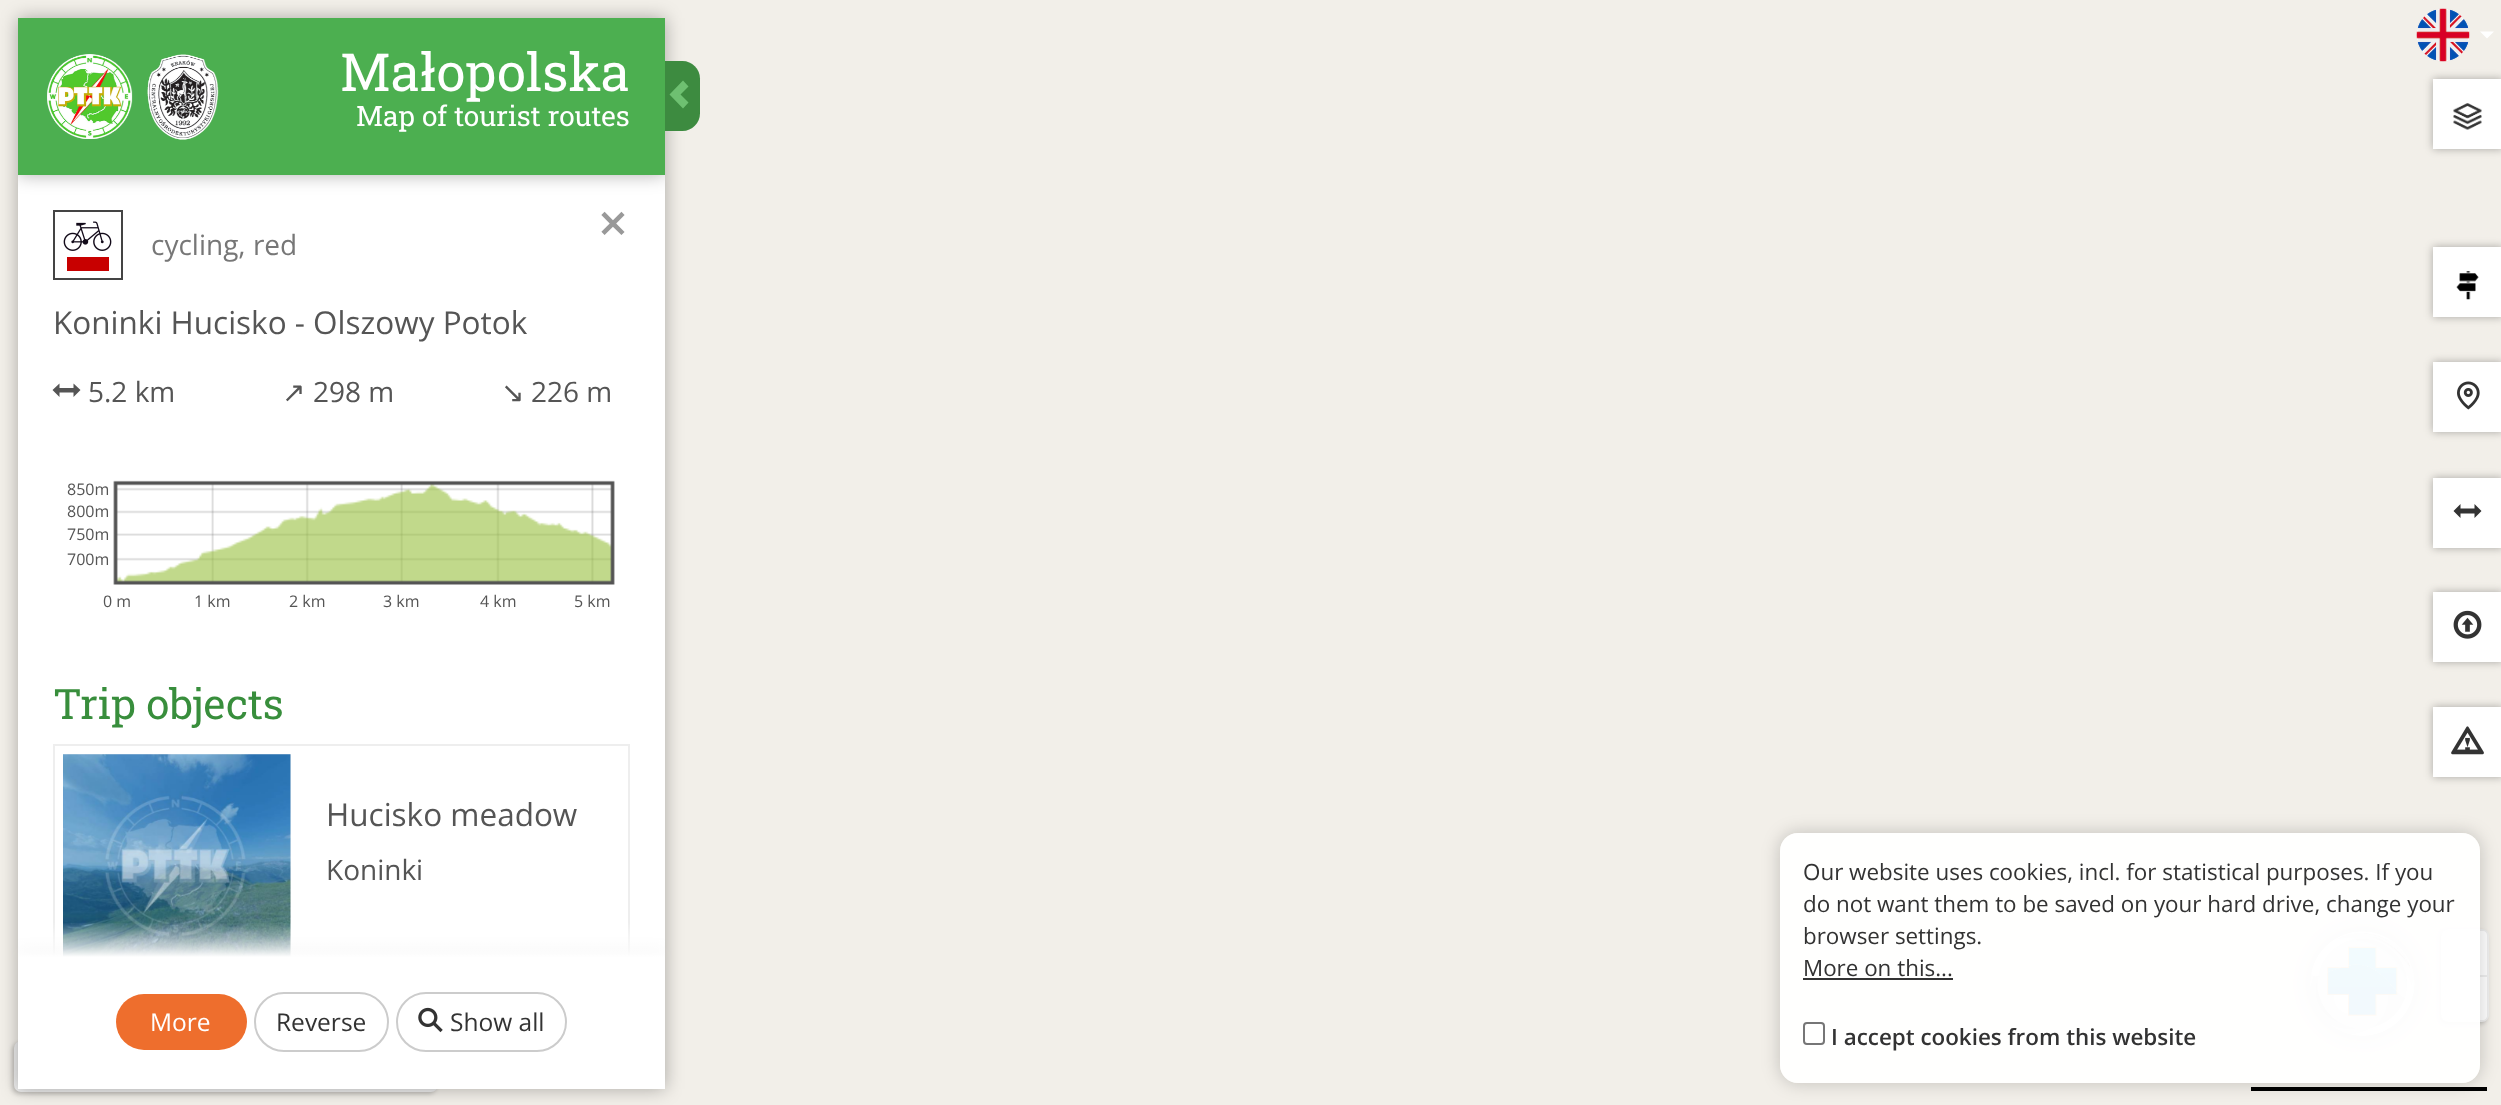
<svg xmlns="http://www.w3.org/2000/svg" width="2501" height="1105">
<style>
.a{font:52.5px Roboto Slab;fill:#fff}
.b{font:28px Roboto Slab;fill:#fff}
.c{font:600 52.5px Open Sans;fill:#999}
.d{font:28px Open Sans;fill:#777}
.e{font:31.5px Open Sans;fill:#555}
.f{font:28px Open Sans;fill:#555}
.g{font:28px DejaVu Sans;fill:#555}
.h{font:16px Open Sans;fill:#555}
.i{font:42px Roboto Slab;fill:#388e3c}
.j{font:24.5px Open Sans;fill:#fff}
.k{font:24.5px Open Sans;fill:#333}
.l{font:22.4px Open Sans;fill:#333}
.m{font:600 22.4px Open Sans;fill:#333}
</style>
<defs>
<linearGradient id="g1" gradientUnits="userSpaceOnUse" x1="341" y1="922" x2="341" y2="957"><stop offset="0" stop-color="#fff" stop-opacity="0"/><stop offset="1" stop-color="#fff"/></linearGradient>
<clipPath id="clip1"><path d="M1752 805h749v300h-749zm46 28h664c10 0 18 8 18 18v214c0 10-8 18-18 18h-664c-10 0-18-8-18-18v-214c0-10 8-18 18-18z" clip-rule="evenodd"/></clipPath>
</defs>
<rect width="100%" height="100%" fill="#f2efe9"/>
<image href="1.png" x="2416" y="8" width="54" height="54"/>
<path fill="#fff" d="M2480 31.5h14l-7 7z"/>
<path fill="#0000004d" filter="blur(9px)" d="M18 175h647v782H18z"/>
<path fill="#fff" d="M18 175h647v782H18z"/>
<path fill="#0000004d" filter="blur(9px)" d="M18 18h647v157H18z"/>
<path fill="#4caf50" d="M18 18h647v157H18z"/>
<image href="2.png" x="47" y="54" width="172" height="86"/>
<path fill="#3d8b40" d="M665 61h17.5c9.5 0 17.5 8 17.5 17.5v35c0 9.5-8 17.5-17.5 17.5h-17.5z"/>
<path fill="#6ec071" d="M669.5 94.5l13.5 14l5.5-6l-8-8l8-8l-5.5-6z"/>
<image href="3.png" x="63" y="221" width="49" height="30"/>
<path fill="none" stroke="#444" stroke-width="2" d="M54 211h68v68H54z"/>
<path fill="#c80000" d="M67 257h42v14H67z"/>
<path fill="#555" d="M52.5 390l7-6.5v4.5h14v-4.5l7 6.5l-7 7v-4.5h-14v4.5z"/>
<image href="4.png" x="113" y="480" width="502" height="105"/>
<path fill="none" stroke="#eee" stroke-width="2" d="M54 745h575v246H54z"/>
<path fill="#eee" d="M63 754h228v203H63z"/>
<image href="5.png" x="63" y="754" width="228" height="203"/>
<rect fill="#00000033" filter="blur(2px)" x="12" y="1043" width="424" height="51" rx="7"/>
<rect fill="#eee" x="14" y="1041" width="424" height="51" rx="7"/>
<path fill="#0000004d" filter="blur(9px)" d="M18 957h647v132H18z"/>
<path fill="url(#g1)" d="M18 923h647v34H18z"/>
<path fill="#fff" d="M18 957h647v132H18z"/>
<rect fill="#ee6e2d" x="116" y="994" width="131" height="56" rx="28"/>
<rect fill="none" stroke="#ccc" stroke-width="2" x="255" y="993" width="133" height="58" rx="29"/>
<rect fill="none" stroke="#ccc" stroke-width="2" x="397" y="993" width="169" height="58" rx="29"/>
<image href="6.png" x="418" y="1007" width="25" height="26"/>
<path fill="#0000004d" filter="blur(4.5px)" d="M2433 79h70v70H2433z"/>
<path fill="#fff" d="M2433 79h68v70H2433z"/>
<image href="7.png" x="2453" y="103" width="29" height="27"/>
<path fill="#0000004d" filter="blur(4.5px)" d="M2433 247h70v70H2433z"/>
<path fill="#fff" d="M2433 247h68v70H2433z"/>
<image href="8.png" x="2456" y="271" width="23" height="29"/>
<path fill="#0000004d" filter="blur(4.5px)" d="M2433 362h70v70H2433z"/>
<path fill="#fff" d="M2433 362h68v70H2433z"/>
<image href="9.png" x="2457" y="381" width="23" height="29"/>
<path fill="#0000004d" filter="blur(4.5px)" d="M2433 478h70v70H2433z"/>
<path fill="#fff" d="M2433 478h68v70H2433z"/>
<path fill="#333" d="M2453.5 511l7-7v4.5h14v-4.5l7 7l-7 7v-4.5h-14v4.5z"/>
<path fill="#0000004d" filter="blur(4.5px)" d="M2433 592h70v70H2433z"/>
<path fill="#fff" d="M2433 592h68v70H2433z"/>
<image href="10.png" x="2453" y="610" width="29" height="29"/>
<path fill="#0000004d" filter="blur(4.5px)" d="M2433 707h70v70H2433z"/>
<path fill="#fff" d="M2433 707h68v70H2433z"/>
<image href="11.png" x="2451" y="726" width="33" height="29"/>
<rect fill="#00000033" filter="blur(2px)" x="2440" y="931" width="47" height="93" rx="7"/>
<rect fill="#eee" x="2441" y="929" width="48" height="93" rx="7"/>
<rect fill="#0000004d" filter="blur(9px)" x="2310" y="931" width="105" height="105" rx="52.5"/>
<image href="12.png" x="2310" y="931" width="105" height="105"/>
<path fill="#fff" d="M2447 931h36c2 0 4 2 4 4v40h-44v-40c0-2 2-4 4-4z"/>
<path fill="#fff" d="M2443 977h44v39c0 2-2 4-4 4h-36c-2 0-4-2-4-4z"/>
<path fill="#000" d="M2251 1087h236v4H2251z"/>
<g clip-path="url(#clip1)">
<rect fill="#00000033" filter="blur(9px)" x="1780" y="833" width="700" height="250" rx="18"/>
</g>
<rect fill="#fffffff2" x="1780" y="833" width="700" height="250" rx="18"/>
<path fill="#333" d="M1803 978h150v2H1803z"/>
<rect fill="none" stroke="#767676" stroke-width="2" x="1804" y="1023" width="20" height="21" rx="3"/>
<text class="a" x="340" y="91">Małopolska</text>
<text class="b" x="356" y="126">Map of tourist routes</text>
<text class="c" x="598" y="242">×</text>
<text class="d" x="151" y="255">cycling, red</text>
<text class="e" x="53" y="334">Koninki Hucisko - Olszowy Potok</text>
<text class="f" x="88" y="402">5.2 km</text>
<text class="g" x="282" y="402">↗</text>
<text class="f" x="313" y="402">298 m</text>
<text class="g" x="501" y="402">↘</text>
<text class="f" x="531" y="402">226 m</text>
<text class="h" x="67" y="495">850m</text>
<text class="h" x="67" y="517">800m</text>
<text class="h" x="67" y="540">750m</text>
<text class="h" x="67" y="565">700m</text>
<text class="h" x="103" y="607">0 m</text>
<text class="h" x="194" y="607">1 km</text>
<text class="h" x="289" y="607">2 km</text>
<text class="h" x="383" y="607">3 km</text>
<text class="h" x="480" y="607">4 km</text>
<text class="h" x="574" y="607">5 km</text>
<text class="i" x="53" y="719">Trip objects</text>
<text class="e" x="326" y="826">Hucisko meadow</text>
<text class="f" x="326" y="880">Koninki</text>
<text class="j" x="150" y="1031">More</text>
<text class="k" x="276" y="1031">Reverse</text>
<text class="k" x="450" y="1031">Show all</text>
<text class="l" x="1803" y="880">Our website uses cookies, incl. for statistical purposes. If you</text>
<text class="l" x="1803" y="912">do not want them to be saved on your hard drive, change your</text>
<text class="l" x="1803" y="944">browser settings.</text>
<text class="l" x="1803" y="976">More on this...</text>
<text class="m" x="1831" y="1045">I accept cookies from this website</text>
</svg>
